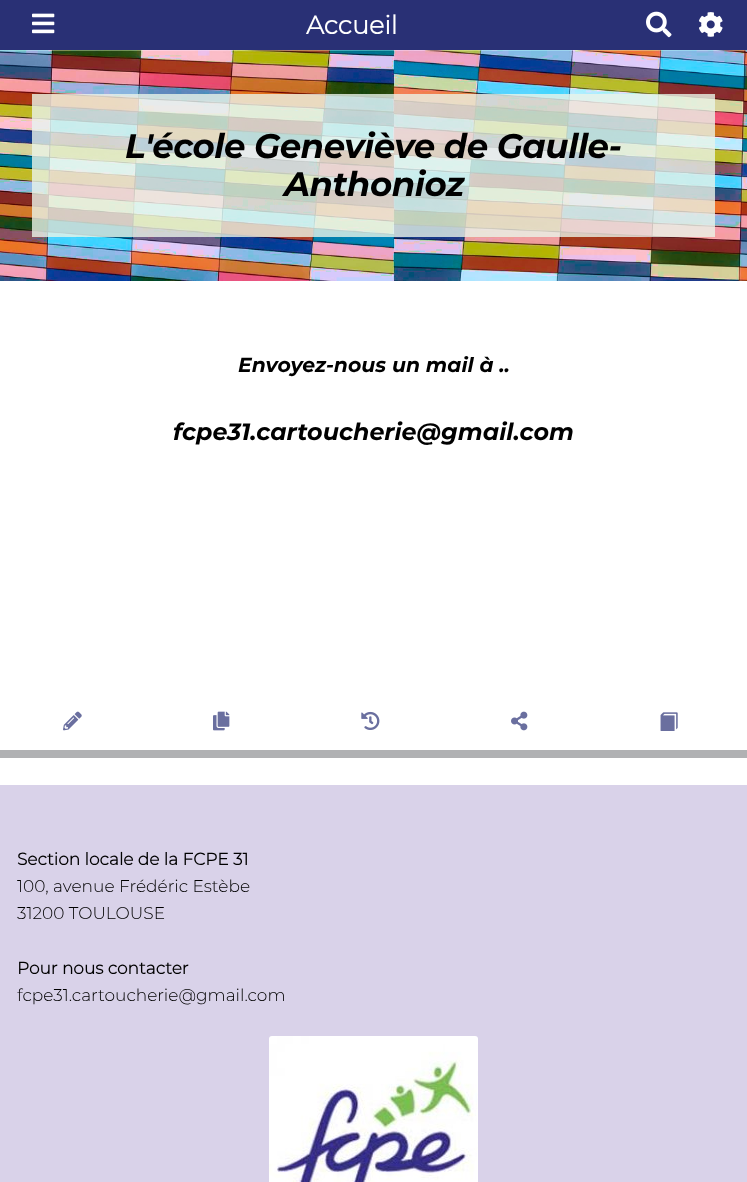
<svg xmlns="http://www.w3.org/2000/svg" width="747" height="1182">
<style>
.a{font:bold 25.5px Montserrat;fill:#fff}
.b{font:italic bold 34px Montserrat;letter-spacing:-0.5px;fill:#000}
.c{font:italic bold 20.4px Montserrat;fill:#000}
.d{font:italic bold 23.75px Montserrat;fill:#000}
.e{font:bold 17px Montserrat;fill:#000}
.f{font:300 17px Montserrat;fill:#000}
</style>
<rect width="100%" height="100%" fill="#fff"/>
<path fill="#293075" d="M0 0h747v50H0z"/>
<image href="1.png" x="32" y="13" width="23" height="21"/>
<image href="2.png" x="646" y="11" width="26" height="27"/>
<image href="3.png" x="699" y="12" width="24" height="25"/>
<image href="4.png" x="0" y="50" width="747" height="231"/>
<path fill="#eaf4e8cc" d="M32 94h683v143H32z"/>
<image href="5.png" x="63" y="711" width="19" height="20"/>
<image href="6.png" x="213" y="711" width="17" height="20"/>
<image href="7.png" x="361" y="711" width="19" height="19"/>
<image href="8.png" x="511" y="711" width="17" height="20"/>
<image href="9.png" x="660" y="712" width="18" height="19"/>
<path fill="#b0b1b3" d="M0 750h747v8H0z"/>
<path fill="#d9d2e9" d="M0 785h747v397H0z"/>
<image href="10.png" x="269" y="1036" width="209" height="146"/>
<text class="a" x="306" y="34">Accueil</text>
<text class="b" x="125" y="158">L'école Geneviève de Gaulle-</text>
<text class="b" x="284" y="196">Anthonioz</text>
<text class="c" x="238" y="372">Envoyez-nous un mail à ..</text>
<text class="d" x="173" y="440">fcpe31.cartoucherie@gmail.com</text>
<text class="e" x="17" y="865">Section locale de la FCPE 31</text>
<text class="f" x="17" y="892">100, avenue Frédéric Estèbe</text>
<text class="f" x="17" y="919">31200 TOULOUSE</text>
<text class="e" x="17" y="974">Pour nous contacter</text>
<text class="f" x="17" y="1001">fcpe31.cartoucherie@gmail.com</text>
</svg>
